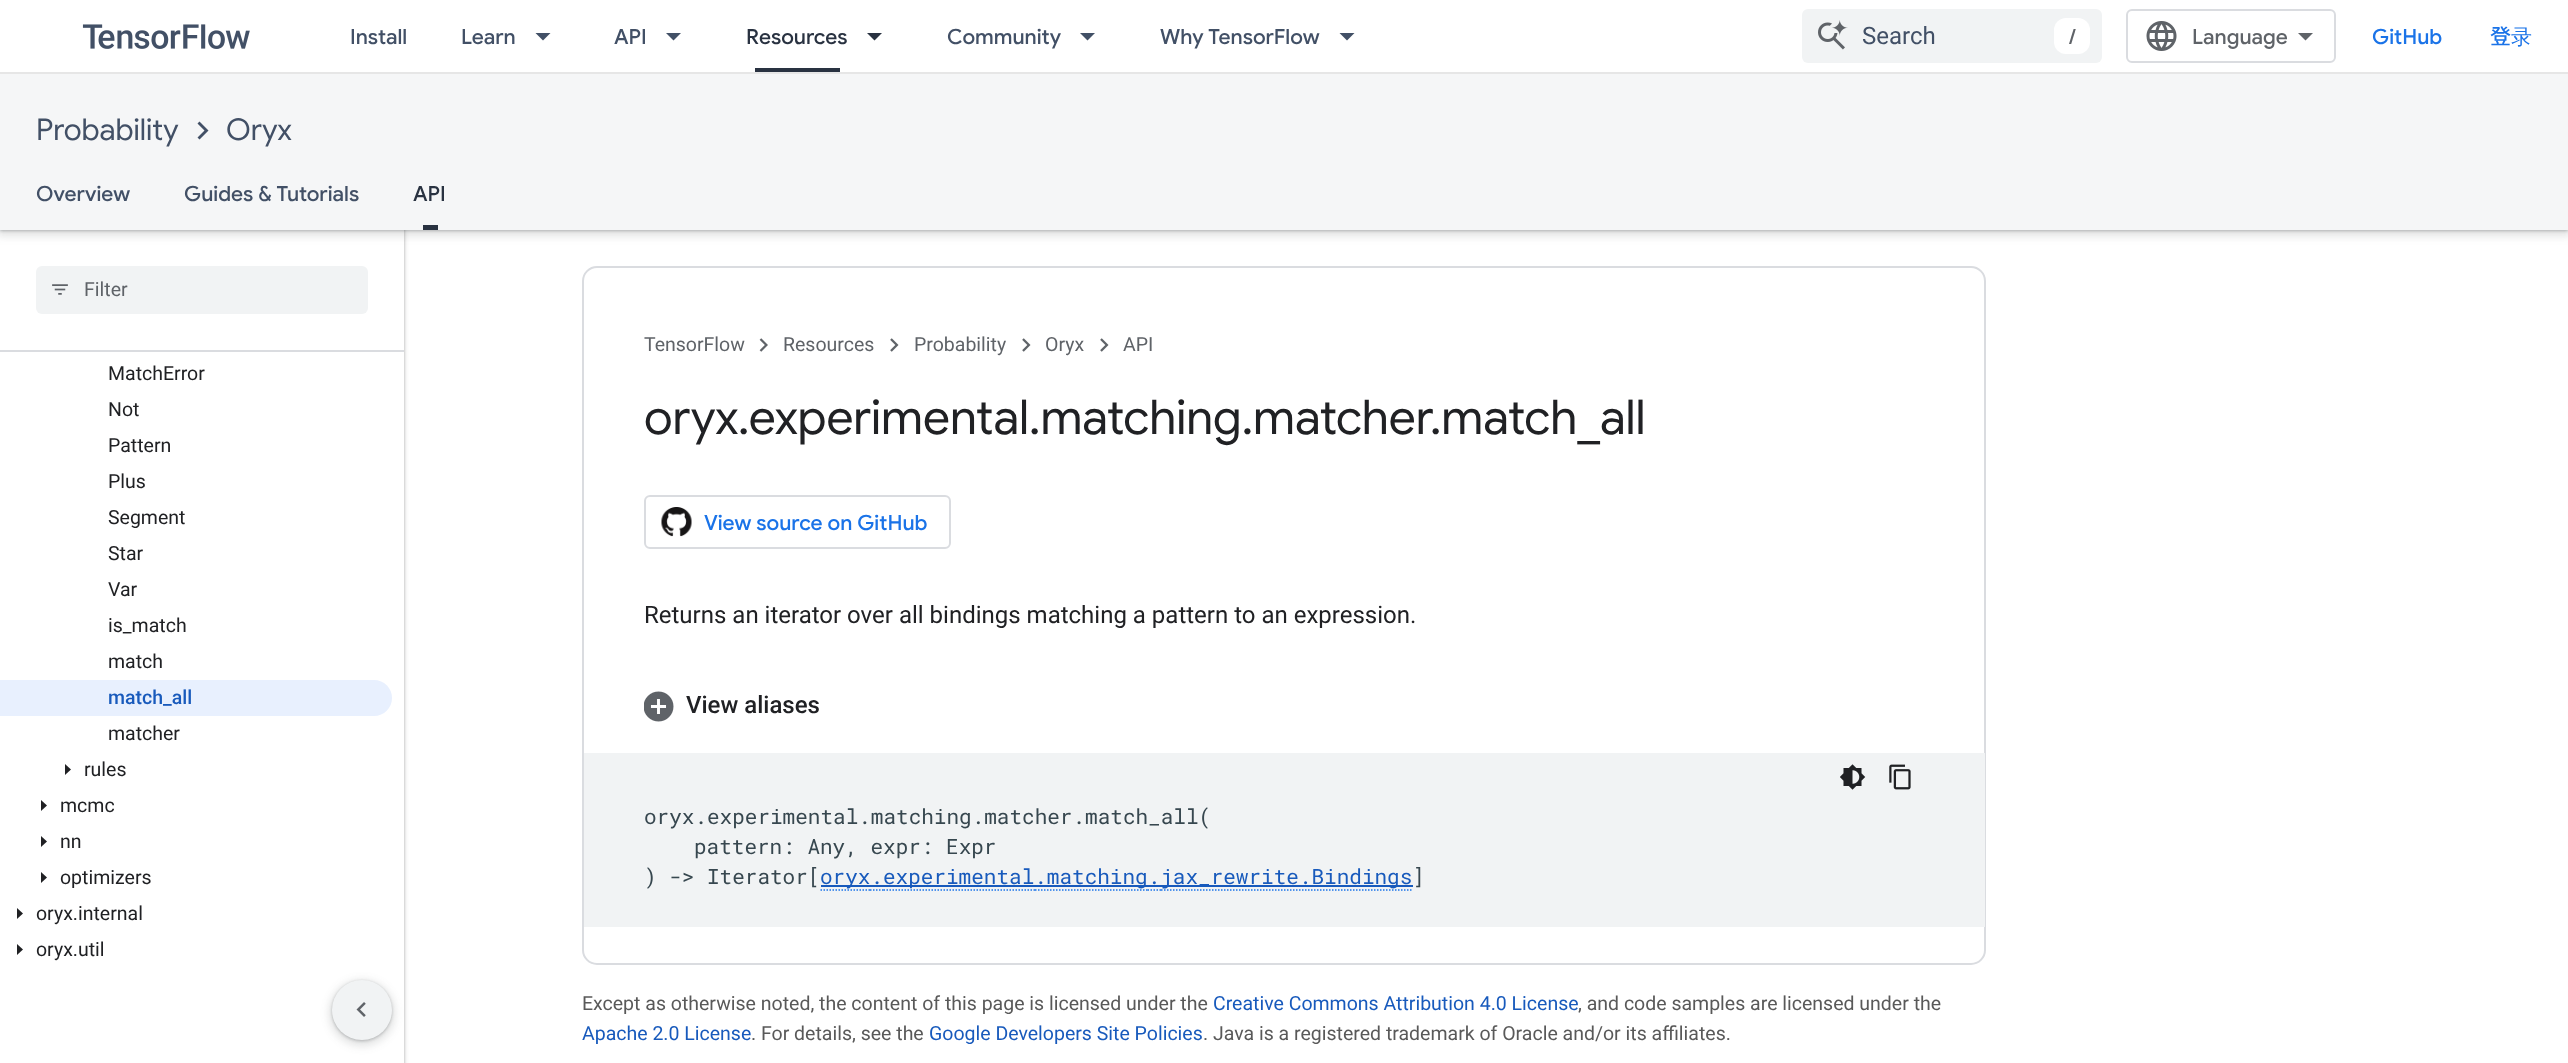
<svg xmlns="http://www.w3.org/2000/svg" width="2568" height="1063">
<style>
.a{font:500 21px Google Sans;fill:#425066}
.b{font:500 21px Google Sans;fill:#293241}
.c{font:24px Roboto;fill:#425066}
.d{font:500 21px Google Sans;fill:#5f6368}
.e{font:500 21px Google Sans;fill:#1a73e8}
.f{font:500 21px Noto Sans JP;fill:#1a73e8}
.g{font:500 21px WenQuanYi Zen Hei;fill:#1a73e8}
.h{font:30px Google Sans;fill:#425066}
.i{font:19.5px Roboto;fill:#5f6368}
.j{font:19.5px Roboto;fill:#202124}
.k{font:500 19.5px Roboto;fill:#185abc}
.l{font:48px Google Sans;fill:#202124}
.m{font:24px Roboto;fill:#202124}
.n{font:500 24px Roboto;fill:#202124}
.o{font:21px Roboto Mono;fill:#37474f}
.p{font:21px Roboto Mono;fill:#185abc}
.q{font:19.5px Roboto;fill:#595959}
.r{font:19.5px Roboto;fill:#185abc}
</style>
<rect width="100%" height="100%" fill="#fff"/>
<path fill="#3c404326" filter="blur(2px)" d="M-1 0h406v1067H-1z"/>
<path fill="#3c40434d" filter="blur(1.5px)" d="M0 2h404v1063H0z"/>
<path fill="#fff" d="M0 352h404v711H0z"/>
<path fill="#fff" d="M0 230h404v120H0z"/>
<path fill="#3c404326" filter="blur(4.5px)" d="M-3 74h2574v162H-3z"/>
<path fill="#3c40434d" filter="blur(1.5px)" d="M0 75h2568v156H0z"/>
<path fill="#fff" d="M0 0h2568v72H0z"/>
<path fill="#e6e6e6" d="M0 72h2568v2H0z"/>
<image href="1.png" x="82" y="24" width="168" height="25"/>
<path fill="#425066" d="M535.5 33h15l-7.5 7.5z"/>
<path fill="#425066" d="M666 33h15l-7.5 7.5z"/>
<path fill="#293241" d="M755 68h85v4H755z"/>
<path fill="#293241" d="M867 33h15l-7.5 7.5z"/>
<path fill="#425066" d="M1080 33h15l-7.5 7.5z"/>
<path fill="#425066" d="M1339.5 33h15l-7.5 7.5z"/>
<rect fill="#f1f3f4" x="1802" y="9" width="300" height="54" rx="6"/>
<image href="2.png" x="1818" y="20" width="30" height="30"/>
<rect fill="#fff" x="2054" y="18" width="36" height="36" rx="12"/>
<rect fill="none" stroke="#dadce0" stroke-width="2" x="2127" y="10" width="208" height="52" rx="5"/>
<image href="3.png" x="2146" y="21" width="31" height="30"/>
<path fill="#5f6368" d="M2305.5 40.5l-7.5-7.5h15z"/>
<path fill="#f5f6f7" d="M0 74h2568v156H0z"/>
<path fill="#425066" d="M199.5 121.5l9 9l-9 9l-2-2l7-7l-7-7z"/>
<path fill="#293241" d="M423 225h15v5H423z"/>
<path fill="#dadce0" d="M0 350h404v2H0z"/>
<rect fill="#f1f3f4" x="36" y="266" width="332" height="48" rx="6"/>
<image href="4.png" x="52" y="284" width="16" height="11"/>
<path fill="#e8f0fe" d="M0 680h374c10 0 18 8 18 18c0 10-8 18-18 18h-374z"/>
<path fill="#202124" d="M65 775v-11l6 5.5z"/>
<path fill="#202124" d="M41 811v-11l6 5.5z"/>
<path fill="#202124" d="M41 847v-11l6 5.5z"/>
<path fill="#202124" d="M41 883v-11l6 5.5z"/>
<path fill="#202124" d="M17 919v-11l6 5.5z"/>
<path fill="#202124" d="M17 955v-11l6 5.5z"/>
<rect fill="#3c404326" filter="blur(4.5px)" x="329" y="980" width="66" height="66" rx="33"/>
<rect fill="#3c40434d" filter="blur(1.5px)" x="332" y="981" width="60" height="60" rx="30"/>
<circle fill="#f1f3f4" cx="362" cy="1010" r="30"/>
<image href="5.png" x="356" y="1002" width="10" height="15"/>
<rect fill="none" stroke="#dadce0" stroke-width="2" x="583" y="267" width="1402" height="697" rx="14"/>
<image href="6.png" x="759" y="338" width="9" height="14"/>
<image href="7.png" x="890" y="338" width="9" height="14"/>
<image href="7.png" x="1022" y="338" width="9" height="14"/>
<image href="7.png" x="1100" y="338" width="9" height="14"/>
<rect fill="none" stroke="#dadce0" stroke-width="2" x="645" y="496" width="305" height="52" rx="5"/>
<image href="8.png" x="661" y="507" width="31" height="30"/>
<image href="9.png" x="644" y="691" width="30" height="31"/>
<path fill="#f1f3f4" d="M584 753h1401v174H584z"/>
<image href="10.png" x="1840" y="764" width="26" height="26"/>
<image href="11.png" x="1889" y="764" width="22" height="26"/>
<path fill="none" stroke="#1a73e8" stroke-width="1.5" stroke-dasharray="1.5 1.5" d="M820.5 890h49.5"/>
<path fill="none" stroke="#1a73e8" stroke-width="1.5" stroke-dasharray="1.5 1.5" d="M870 890h13.5"/>
<path fill="none" stroke="#1a73e8" stroke-width="1.5" stroke-dasharray="1.5 1.5" d="M883.5 890h151.5"/>
<path fill="none" stroke="#1a73e8" stroke-width="1.5" stroke-dasharray="1.5 1.5" d="M1035 890h12"/>
<path fill="none" stroke="#1a73e8" stroke-width="1.5" stroke-dasharray="1.5 1.5" d="M1047 890h100.5"/>
<path fill="none" stroke="#1a73e8" stroke-width="1.5" stroke-dasharray="1.5 1.5" d="M1147.5 890h13.5"/>
<path fill="none" stroke="#1a73e8" stroke-width="1.5" stroke-dasharray="1.5 1.5" d="M1161 890h138"/>
<path fill="none" stroke="#1a73e8" stroke-width="1.5" stroke-dasharray="1.5 1.5" d="M1299 890h12"/>
<path fill="none" stroke="#1a73e8" stroke-width="1.5" stroke-dasharray="1.5 1.5" d="M1311 890h102"/>
<path fill="#185abc" d="M821 885h592v2H821z"/>
<text class="a" x="350" y="44">Install</text>
<text class="a" x="461" y="44">Learn</text>
<text class="a" x="614" y="44">API</text>
<text class="b" x="746" y="44">Resources</text>
<text class="a" x="947" y="44">Community</text>
<text class="a" x="1160" y="44">Why TensorFlow</text>
<text class="c" x="1862" y="44">Search</text>
<text class="d" x="2069" y="44">/</text>
<text class="d" x="2192" y="44">Language</text>
<text class="e" x="2372" y="44">GitHub</text>
<text class="f" x="2490" y="44">登</text>
<text class="g" x="2511" y="44">录</text>
<text class="h" x="36" y="140">Probability</text>
<text class="h" x="226" y="140">Oryx</text>
<text class="a" x="36" y="201">Overview</text>
<text class="a" x="184" y="201">Guides &amp; Tutorials</text>
<text class="b" x="413" y="201">API</text>
<text class="i" x="84" y="296">Filter</text>
<text class="j" x="108" y="380">MatchError</text>
<text class="j" x="108" y="416">Not</text>
<text class="j" x="108" y="452">Pattern</text>
<text class="j" x="108" y="488">Plus</text>
<text class="j" x="108" y="524">Segment</text>
<text class="j" x="108" y="560">Star</text>
<text class="j" x="108" y="596">Var</text>
<text class="j" x="108" y="632">is_match</text>
<text class="j" x="108" y="668">match</text>
<text class="k" x="108" y="704">match_all</text>
<text class="j" x="108" y="740">matcher</text>
<text class="j" x="84" y="776">rules</text>
<text class="j" x="60" y="812">mcmc</text>
<text class="j" x="60" y="848">nn</text>
<text class="j" x="60" y="884">optimizers</text>
<text class="j" x="36" y="920">oryx.internal</text>
<text class="j" x="36" y="956">oryx.util</text>
<text class="i" x="644" y="351">TensorFlow</text>
<text class="i" x="783" y="351">Resources</text>
<text class="i" x="914" y="351">Probability</text>
<text class="i" x="1045" y="351">Oryx</text>
<text class="i" x="1123" y="351">API</text>
<text class="l" x="644" y="434">oryx.experimental.matching.matcher</text>
<text class="l" x="1430" y="434">.match_all</text>
<text class="e" x="704" y="530">View source on GitHub</text>
<text class="m" x="644" y="623">Returns an iterator over all bindings matching a pattern to an expression.</text>
<text class="n" x="686" y="713">View aliases</text>
<text class="o" x="644" y="824">oryx.experimental.matching.matcher.match_all(</text>
<text class="o" x="694" y="854">pattern: Any, expr: Expr</text>
<text class="o" x="644" y="884">) -&gt; Iterator[</text>
<text class="p" x="820" y="884">oryx.experimental.matching.jax_rewrite.Bindings</text>
<text class="o" x="1412" y="884">]</text>
<text class="q" x="582" y="1010">Except as otherwise noted, the content of this page is licensed under the</text>
<text class="r" x="1213" y="1010">Creative Commons Attribution 4.0 License</text>
<text class="q" x="1578" y="1010">, and code samples are licensed under the</text>
<text class="r" x="582" y="1040">Apache 2.0 License</text>
<text class="q" x="751" y="1040">. For details, see the</text>
<text class="r" x="929" y="1040">Google Developers Site Policies</text>
<text class="q" x="1203" y="1040">. Java is a registered trademark of Oracle and/or its affiliates.</text>
</svg>
